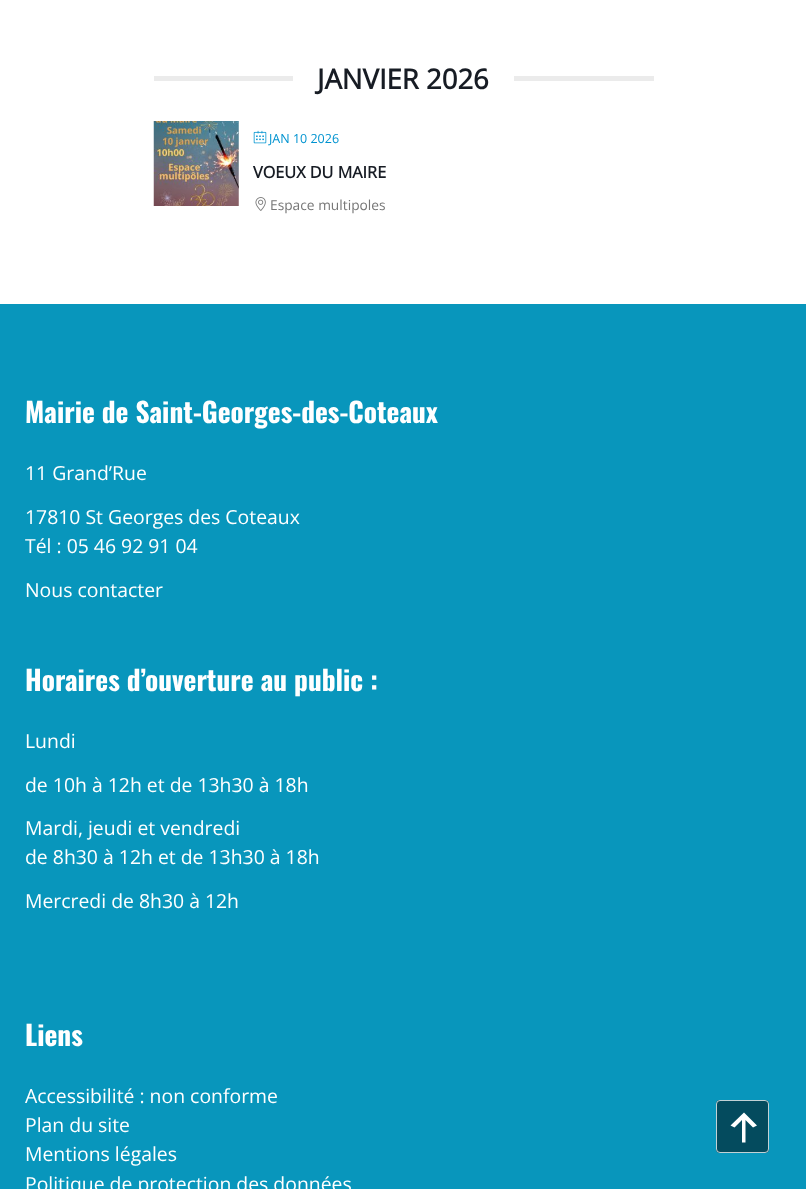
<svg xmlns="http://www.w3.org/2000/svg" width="806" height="1189">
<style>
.a{font:bold 27.5px Open Sans;fill:#171c24}
.b{font:12.5px Open Sans;fill:#0093d0}
.c{font:bold 16.25px Open Sans;fill:#171c24}
.d{font:13.75px Open Sans;fill:#777}
.e{font:bold 27.4px Oswald;fill:#fff}
.f{font:19.4px Open Sans;fill:#fff}
</style>
<rect width="100%" height="100%" fill="#fff"/>
<path fill="#ebebeb" d="M154 76h139v5H154z"/>
<path fill="#ebebeb" d="M514 76h140v5H514z"/>
<image href="1.png" x="153" y="121" width="86" height="85"/>
<image href="2.png" x="253" y="130" width="14" height="14"/>
<image href="3.png" x="255" y="197" width="11" height="14"/>
<path fill="#0896bc" d="M0 304h806v885H0z"/>
<rect fill="#044b5e" x="716" y="1100" width="53" height="53" rx="4"/>
<rect fill="none" stroke="#f2f2f2cc" x="716.5" y="1100.5" width="52" height="52" rx="3.5"/>
<path fill="#fff" d="M745.5 1142.5h-3.5v-22.5l-7.5 7.5l-4-2l13.5-13l13 13l-4 2l-7.5-7.5z"/>
<text class="a" x="317" y="89">JANVIER 2026</text>
<text class="b" x="269" y="143">JAN 10 2026</text>
<text class="c" x="253" y="178">VOEUX DU MAIRE</text>
<text class="d" x="270" y="210">Espace multipoles</text>
<text class="e" x="25" y="423">Mairie de Saint-Georges-des-Coteaux</text>
<text class="f" x="25" y="480">11 Grand’Rue</text>
<text class="f" x="25" y="524">17810 St Georges des Coteaux</text>
<text class="f" x="25" y="553">Tél : 05 46 92 91 04</text>
<text class="f" x="25" y="597">Nous contacter</text>
<text class="e" x="25" y="691">Horaires d’ouverture au public :</text>
<text class="f" x="25" y="748">Lundi</text>
<text class="f" x="25" y="792">de 10h à 12h et de 13h30 à 18h</text>
<text class="f" x="25" y="835">Mardi, jeudi et vendredi</text>
<text class="f" x="25" y="864">de 8h30 à 12h et de 13h30 à 18h</text>
<text class="f" x="25" y="908">Mercredi de 8h30 à 12h</text>
<text class="e" x="25" y="1046">Liens</text>
<text class="f" x="25" y="1103">Accessibilité : non conforme</text>
<text class="f" x="25" y="1132">Plan du site</text>
<text class="f" x="25" y="1161">Mentions légales</text>
<text class="f" x="25" y="1191">Politique de protection des données</text>
</svg>
